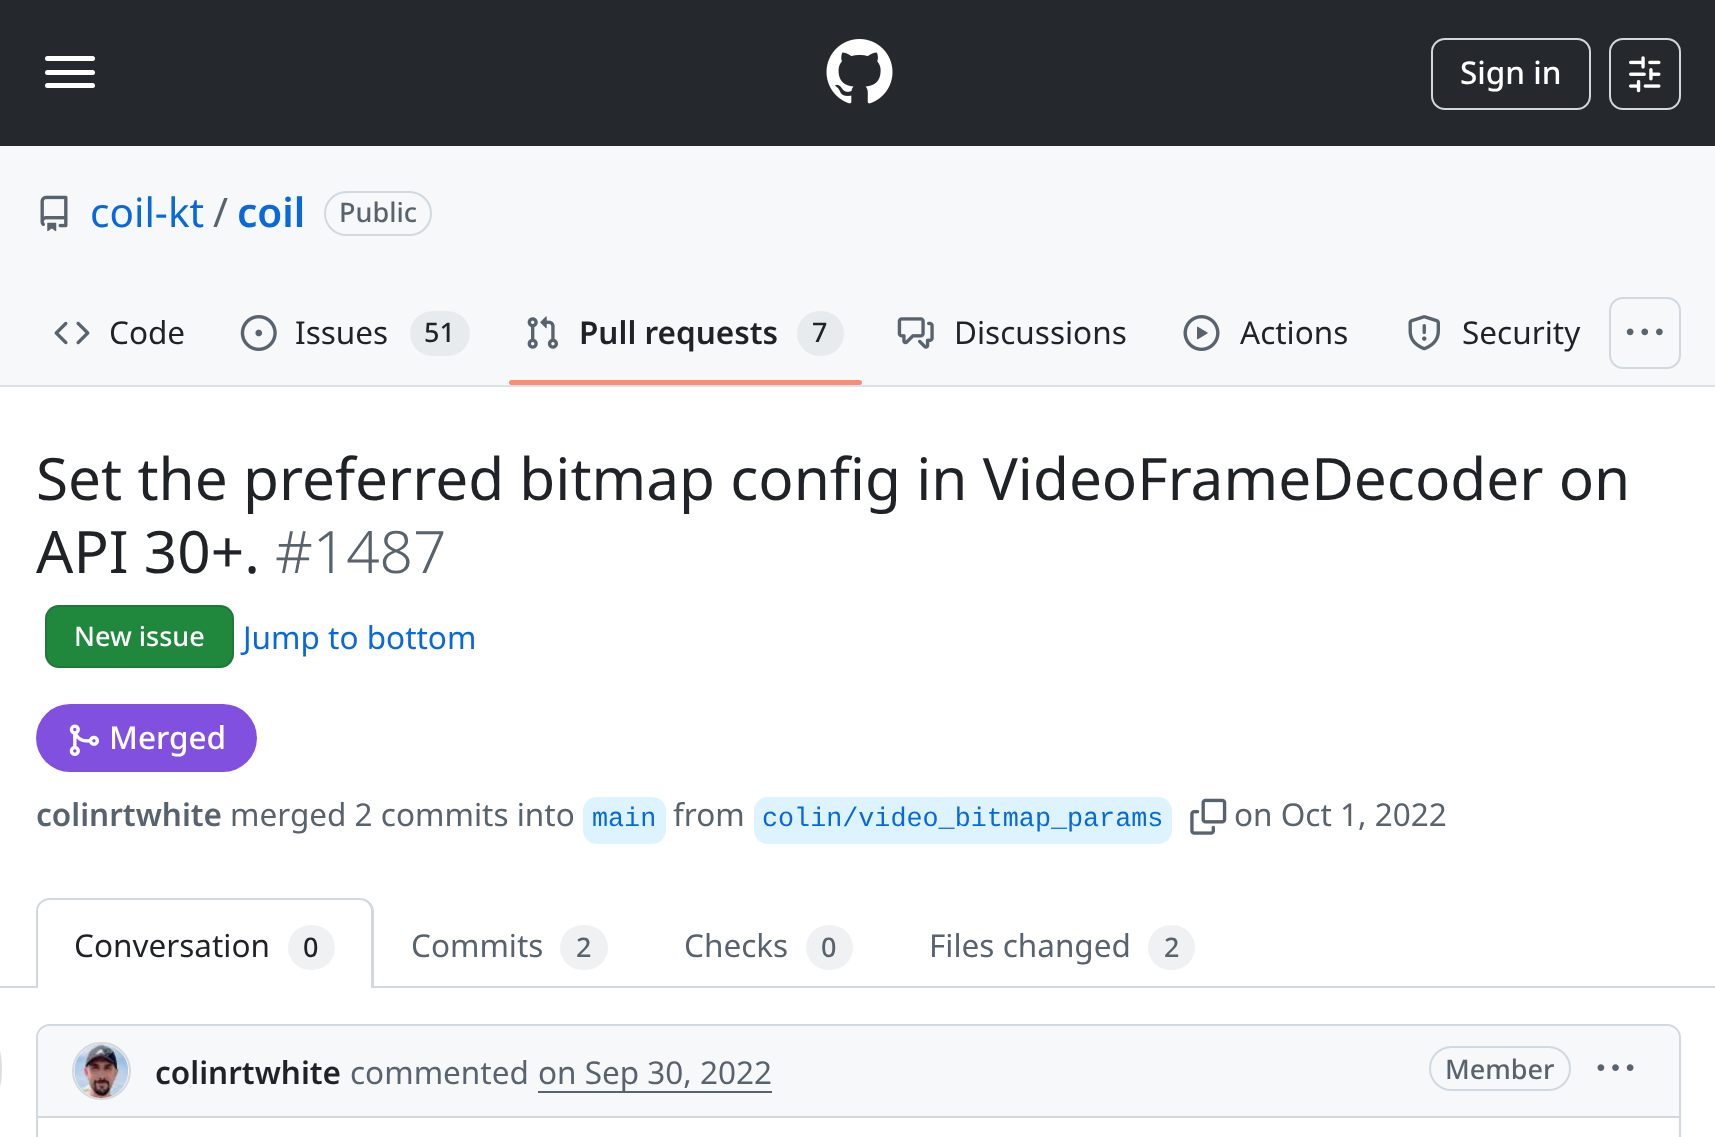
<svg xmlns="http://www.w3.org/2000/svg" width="1715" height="1137">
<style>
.a{font:500 31.5px Noto Sans;fill:#fff}
.b{font:40.5px Noto Sans;fill:#0969da}
.c{font:40.5px Noto Sans;fill:#59636e}
.d{font:600 40.5px Noto Sans;fill:#0969da}
.e{font:500 27px Noto Sans;fill:#59636e}
.f{font:31.5px Noto Sans;fill:#1f2328}
.g{font:500 27px Noto Sans;fill:#1f2328}
.h{font:600 31.5px Noto Sans;fill:#1f2328}
.i{font:58.5px Noto Sans;fill:#1f2328}
.j{font:300 58.5px Noto Sans;fill:#59636e}
.k{font:500 27px Noto Sans;fill:#fff}
.l{font:31.5px Noto Sans;fill:#0969da}
.m{font:600 31.5px Noto Sans;fill:#59636e}
.n{font:31.5px Noto Sans;fill:#59636e}
.o{font:26.75px Liberation Mono;fill:#0969da}
</style>
<rect width="100%" height="100%" fill="#fff"/>
<path fill="#25292e" d="M0 0h1715v146H0z"/>
<rect fill="#fff" x="45" y="56" width="50" height="5" rx="2.5"/>
<rect fill="#fff" x="45" y="70" width="50" height="5" rx="2.5"/>
<rect fill="#fff" x="45" y="83" width="50" height="5" rx="2.5"/>
<image href="1.png" x="826" y="39" width="67" height="65"/>
<rect fill="none" stroke="#d1d9e0" stroke-width="2" x="1432" y="39" width="158" height="70" rx="13"/>
<rect fill="none" stroke="#d1d9e0" stroke-width="2" x="1610" y="39" width="70" height="70" rx="13"/>
<image href="2.png" x="1629" y="56" width="32" height="37"/>
<path fill="#f6f8fa" d="M0 146h1715v239H0z"/>
<image href="3.png" x="40" y="195" width="28" height="37"/>
<rect fill="none" stroke="#d1d9e0" stroke-width="2" x="325" y="192" width="106" height="43" rx="21.5"/>
<path fill="#dce2e8" d="M0 385h1715v2H0z"/>
<image href="4.png" x="54" y="321" width="36" height="24"/>
<image href="5.png" x="240" y="315" width="37" height="36"/>
<rect fill="#e8ebee" x="410" y="311" width="60" height="45" rx="22.5"/>
<image href="6.png" x="527" y="316" width="31" height="33"/>
<rect fill="#e8ebee" x="797" y="311" width="47" height="45" rx="22.5"/>
<rect fill="#fd8c73" x="509" y="380" width="353" height="5" rx="2.5"/>
<image href="7.png" x="897" y="317" width="37" height="32"/>
<image href="8.png" x="1183" y="315" width="37" height="36"/>
<image href="9.png" x="1408" y="315" width="32" height="36"/>
<rect fill="none" stroke="#d1d9e0" stroke-width="2" x="1610" y="298" width="70" height="70" rx="13"/>
<image href="10.png" x="1626" y="328" width="37" height="8"/>
<rect fill="#1f883d" x="45" y="605" width="189" height="63" rx="14"/>
<rect fill="none" stroke="#1f232826" stroke-width="2" x="46" y="606" width="187" height="61" rx="13"/>
<rect fill="#8250df" x="36" y="704" width="221" height="68" rx="34"/>
<image href="11.png" x="69" y="724" width="30" height="32"/>
<rect fill="#ddf4ff" x="583" y="797" width="83" height="47" rx="14"/>
<rect fill="#ddf4ff" x="754" y="797" width="418" height="47" rx="14"/>
<image href="12.png" x="1190" y="798" width="37" height="37"/>
<path fill="#d1d9e0" d="M0 986h1715v2H0z"/>
<path fill="#fff" d="M50 898h310c7.5 0 14 6.5 14 14v76h-338v-76c0-7.5 6.5-14 14-14z"/>
<path fill="#d1d9e0" fill-rule="evenodd" d="M50 898h310c7 0 14 6 14 13v77h-338v-77c0-7 6-13 14-13zm0 2h310c6 0 11 5 11 11v77h-333v-77c0-6 5-11 12-11z"/>
<rect fill="#f0f1f3" x="288" y="925" width="47" height="45" rx="22.5"/>
<rect fill="#f0f1f3" x="560" y="925" width="48" height="45" rx="22.5"/>
<rect fill="#f0f1f3" x="806" y="925" width="47" height="45" rx="22.5"/>
<rect fill="#f0f1f3" x="1148" y="925" width="47" height="45" rx="22.5"/>
<rect fill="none" stroke="#dddedf" stroke-width="2" x="-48" y="1023" width="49" height="92" rx="46"/>
<rect fill="none" stroke="#d1d9e0" stroke-width="2" x="37" y="1025" width="1643" height="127" rx="13"/>
<path fill="#f6f8fa" d="M52 1026h1613c7.5 0 14 6.5 14 14v78h-1641v-78c0-7.5 6.5-14 14-14z"/>
<path fill="#d1d9e0" d="M38 1116h1641v2H38z"/>
<rect fill="none" stroke="#d6d8db" stroke-width="2" x="73" y="1043" width="57" height="56" rx="28"/>
<circle fill="#fff" cx="101" cy="1071" r="27"/>
<image href="13.png" x="74" y="1044" width="54" height="54"/>
<path fill="#59636e" d="M538 1091h234v2H538z"/>
<rect fill="none" stroke="#d1d9e0" stroke-width="2" x="1430" y="1047" width="140" height="43" rx="21.5"/>
<image href="14.png" x="1597" y="1064" width="37" height="7"/>
<text class="a" x="1460" y="84">Sign in</text>
<text class="b" x="90" y="227">coil-kt</text>
<text class="c" x="213" y="227">/</text>
<text class="d" x="237" y="227">coil</text>
<text class="e" x="339" y="222">Public</text>
<text class="f" x="109" y="344">Code</text>
<text class="f" x="295" y="344">Issues</text>
<text class="g" x="424" y="342">51</text>
<text class="h" x="579" y="344">Pull requests</text>
<text class="g" x="812" y="342">7</text>
<text class="f" x="954" y="344">Discussions</text>
<text class="f" x="1240" y="344">Actions</text>
<text class="f" x="1462" y="344">Security</text>
<text class="i" x="36" y="500">Set the preferred bitmap config in VideoFrameDecoder on</text>
<text class="i" x="36" y="573">API 30+.</text>
<text class="j" x="275" y="573">#1487</text>
<text class="k" x="74" y="646">New issue</text>
<text class="l" x="243" y="649">Jump to bottom</text>
<text class="a" x="109" y="749">Merged</text>
<text class="m" x="36" y="826">colinrtwhite</text>
<text class="n" x="230" y="826">merged 2 commits into</text>
<text class="o" x="592" y="826">main</text>
<text class="n" x="673" y="826">from</text>
<text class="o" x="762" y="826">colin/video_bitmap_params</text>
<text class="n" x="1234" y="826">on Oct 1, 2022</text>
<text class="f" x="74" y="957">Conversation</text>
<text class="g" x="303" y="957">0</text>
<text class="n" x="411" y="957">Commits</text>
<text class="e" x="576" y="957">2</text>
<text class="n" x="684" y="957">Checks</text>
<text class="e" x="821" y="957">0</text>
<text class="n" x="929" y="957">Files changed</text>
<text class="e" x="1164" y="957">2</text>
<text class="h" x="155" y="1084">colinrtwhite</text>
<text class="n" x="350" y="1084">commented</text>
<text class="n" x="538" y="1084">on Sep 30, 2022</text>
<text class="e" x="1445" y="1079">Member</text>
</svg>
